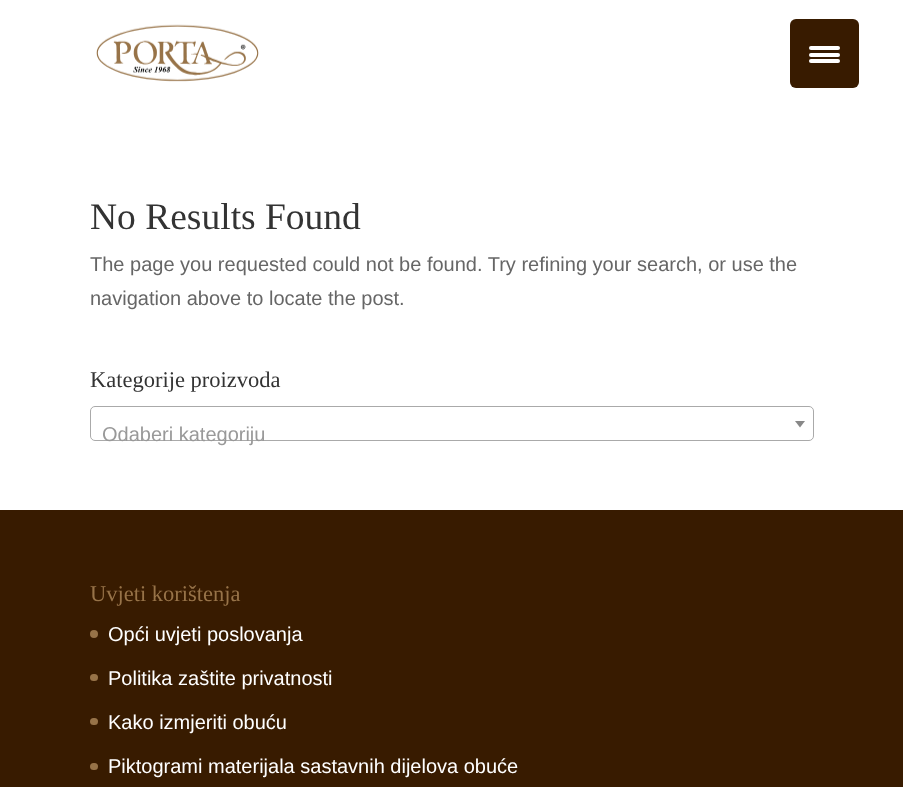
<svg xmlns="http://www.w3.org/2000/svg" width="903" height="787">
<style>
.a{font:37.5px Liberation Serif;fill:#333}
.b{font:20px Liberation Sans;fill:#666}
.c{font:22.5px Liberation Serif;fill:#333}
.d{font:20px Liberation Sans;fill:#999}
.e{font:22.5px Liberation Serif;fill:#977348}
.f{font:20px Liberation Sans;fill:#fff}
</style>
<rect width="100%" height="100%" fill="#fff"/>
<rect fill="#381b00" x="790" y="19" width="69" height="69" rx="6"/>
<rect fill="#fff" x="809" y="53" width="31" height="4" rx="2"/>
<rect fill="#fff" x="809" y="46" width="31" height="4" rx="2"/>
<rect fill="#fff" x="809" y="59" width="31" height="4" rx="2"/>
<image href="1.png" x="96" y="24" width="163" height="58"/>
<rect fill="none" stroke="#aaa" x="90.5" y="406.5" width="723" height="34" rx="4.5"/>
<path fill="#888" d="M795 421h10l-5 6.5z"/>
<path fill="#381b00" d="M0 510h903v277H0z"/>
<circle fill="#977348" cx="94" cy="634" r="4"/>
<rect fill="#977348" x="90" y="674" width="8" height="7" rx="3.5"/>
<rect fill="#977348" x="90" y="718" width="8" height="7" rx="3.5"/>
<rect fill="#977348" x="90" y="763" width="8" height="7" rx="3.5"/>
<text class="a" x="90" y="229">No Results Found</text>
<text class="b" x="90" y="271">The page you requested could not be found. Try refining your search, or use the</text>
<text class="b" x="90" y="305">navigation above to locate the post.</text>
<text class="c" x="90" y="387">Kategorije proizvoda</text>
<text class="d" x="102" y="441">Odaberi kategoriju</text>
<text class="e" x="90" y="601">Uvjeti korištenja</text>
<text class="f" x="108" y="641">Opći uvjeti poslovanja</text>
<text class="f" x="108" y="685">Politika zaštite privatnosti</text>
<text class="f" x="108" y="729">Kako izmjeriti obuću</text>
<text class="f" x="108" y="773">Piktogrami materijala sastavnih dijelova obuće</text>
</svg>
